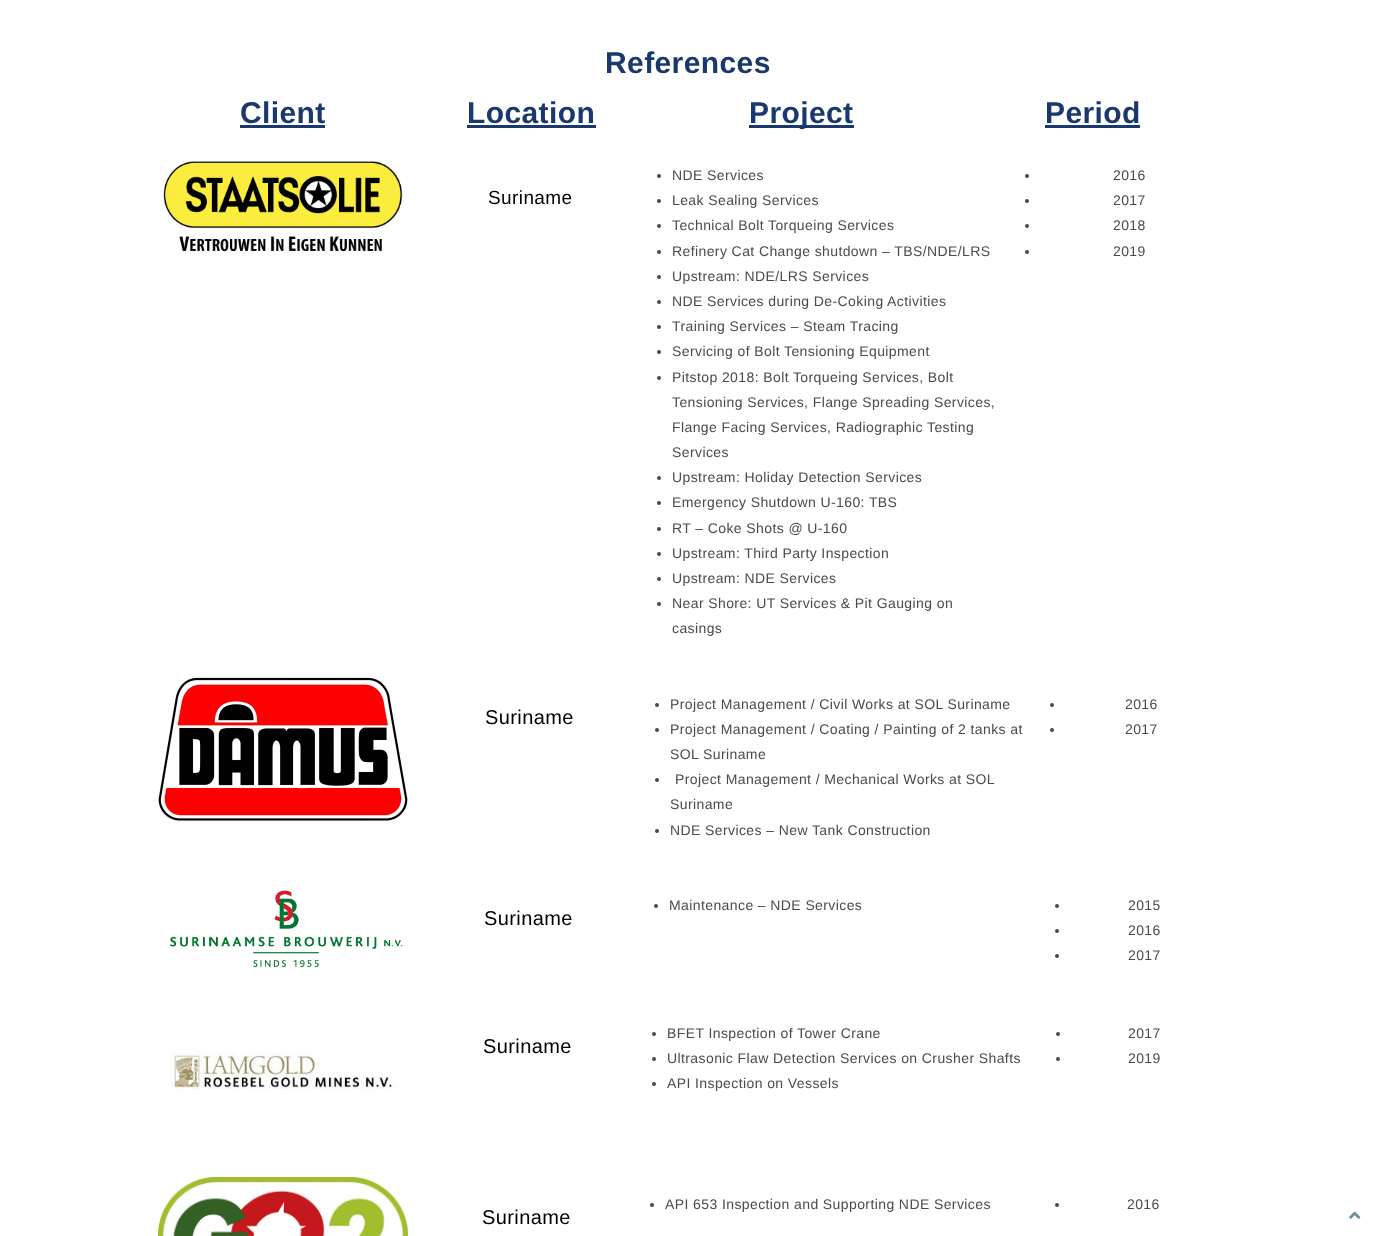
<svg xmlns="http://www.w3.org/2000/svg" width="1375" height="1236">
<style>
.a{font:bold 30px Liberation Sans;letter-spacing:0.4px;fill:#19386d}
.b{font:19px Liberation Sans;letter-spacing:0.4px;fill:#000}
.c{font:14px Liberation Sans;letter-spacing:0.4px;fill:#4a4a4a}
.d{font:20px Liberation Sans;letter-spacing:0.4px;fill:#000}
</style>
<rect width="100%" height="100%" fill="#fff"/>
<path fill="#19386d" d="M240 125h85v3H240z"/>
<path fill="#19386d" d="M467 125h129v3H467z"/>
<path fill="#19386d" d="M749 125h105v3H749z"/>
<path fill="#19386d" d="M1045 125h95v3H1045z"/>
<image href="1.png" x="163" y="161" width="240" height="91"/>
<circle fill="#4a4a4a" cx="659" cy="176" r="2"/>
<circle fill="#4a4a4a" cx="659" cy="201" r="2"/>
<circle fill="#4a4a4a" cx="659" cy="226" r="2"/>
<circle fill="#4a4a4a" cx="659" cy="252" r="2"/>
<circle fill="#4a4a4a" cx="659" cy="277" r="2"/>
<circle fill="#4a4a4a" cx="659" cy="302" r="2"/>
<circle fill="#4a4a4a" cx="659" cy="327" r="2"/>
<circle fill="#4a4a4a" cx="659" cy="352" r="2"/>
<circle fill="#4a4a4a" cx="659" cy="378" r="2"/>
<circle fill="#4a4a4a" cx="659" cy="478" r="2"/>
<circle fill="#4a4a4a" cx="659" cy="503" r="2"/>
<circle fill="#4a4a4a" cx="659" cy="529" r="2"/>
<circle fill="#4a4a4a" cx="659" cy="554" r="2"/>
<circle fill="#4a4a4a" cx="659" cy="579" r="2"/>
<circle fill="#4a4a4a" cx="659" cy="604" r="2"/>
<circle fill="#4a4a4a" cx="1027" cy="176" r="2"/>
<circle fill="#4a4a4a" cx="1027" cy="201" r="2"/>
<circle fill="#4a4a4a" cx="1027" cy="226" r="2"/>
<circle fill="#4a4a4a" cx="1027" cy="252" r="2"/>
<image href="2.png" x="158" y="677" width="250" height="144"/>
<circle fill="#4a4a4a" cx="657" cy="705" r="2"/>
<circle fill="#4a4a4a" cx="657" cy="730" r="2"/>
<circle fill="#4a4a4a" cx="657" cy="780" r="2"/>
<circle fill="#4a4a4a" cx="657" cy="831" r="2"/>
<circle fill="#4a4a4a" cx="1052" cy="705" r="2"/>
<circle fill="#4a4a4a" cx="1052" cy="730" r="2"/>
<image href="3.png" x="170" y="890" width="233" height="78"/>
<circle fill="#4a4a4a" cx="656" cy="906" r="2"/>
<circle fill="#4a4a4a" cx="1057" cy="906" r="2"/>
<circle fill="#4a4a4a" cx="1057" cy="931" r="2"/>
<circle fill="#4a4a4a" cx="1057" cy="956" r="2"/>
<circle fill="#4a4a4a" cx="654" cy="1034" r="2"/>
<circle fill="#4a4a4a" cx="654" cy="1059" r="2"/>
<circle fill="#4a4a4a" cx="654" cy="1084" r="2"/>
<circle fill="#4a4a4a" cx="1058" cy="1034" r="2"/>
<circle fill="#4a4a4a" cx="1058" cy="1059" r="2"/>
<image href="4.png" x="171" y="1051" width="226" height="45"/>
<image href="5.png" x="158" y="1177" width="250" height="59"/>
<circle fill="#4a4a4a" cx="652" cy="1205" r="2"/>
<circle fill="#4a4a4a" cx="1057" cy="1205" r="2"/>
<image href="6.png" x="1349" y="1211" width="12" height="8"/>
<text class="a" x="605" y="73">References</text>
<text class="a" x="240" y="123">Client</text>
<text class="a" x="467" y="123">Location</text>
<text class="a" x="749" y="123">Project</text>
<text class="a" x="1045" y="123">Period</text>
<text class="b" x="488" y="204">Suriname</text>
<text class="c" x="672" y="180">NDE Services</text>
<text class="c" x="672" y="205">Leak Sealing Services</text>
<text class="c" x="672" y="230">Technical Bolt Torqueing Services</text>
<text class="c" x="672" y="256">Refinery Cat Change shutdown – TBS/NDE/LRS</text>
<text class="c" x="672" y="281">Upstream: NDE/LRS Services</text>
<text class="c" x="672" y="306">NDE Services during De-Coking Activities</text>
<text class="c" x="672" y="331">Training Services – Steam Tracing</text>
<text class="c" x="672" y="356">Servicing of Bolt Tensioning Equipment</text>
<text class="c" x="672" y="382">Pitstop 2018: Bolt Torqueing Services, Bolt</text>
<text class="c" x="672" y="407">Tensioning Services, Flange Spreading Services,</text>
<text class="c" x="672" y="432">Flange Facing Services, Radiographic Testing</text>
<text class="c" x="672" y="457">Services</text>
<text class="c" x="672" y="482">Upstream: Holiday Detection Services</text>
<text class="c" x="672" y="507">Emergency Shutdown U-160: TBS</text>
<text class="c" x="672" y="533">RT – Coke Shots @ U-160</text>
<text class="c" x="672" y="558">Upstream: Third Party Inspection</text>
<text class="c" x="672" y="583">Upstream: NDE Services</text>
<text class="c" x="672" y="608">Near Shore: UT Services &amp; Pit Gauging on</text>
<text class="c" x="672" y="633">casings</text>
<text class="c" x="1113" y="180">2016</text>
<text class="c" x="1113" y="205">2017</text>
<text class="c" x="1113" y="230">2018</text>
<text class="c" x="1113" y="256">2019</text>
<text class="d" x="485" y="724">Suriname</text>
<text class="c" x="670" y="709">Project Management / Civil Works at SOL Suriname</text>
<text class="c" x="670" y="734">Project Management / Coating / Painting of 2 tanks at</text>
<text class="c" x="670" y="759">SOL Suriname</text>
<text class="c" x="675" y="784">Project Management / Mechanical Works at SOL</text>
<text class="c" x="670" y="809">Suriname</text>
<text class="c" x="670" y="835">NDE Services – New Tank Construction</text>
<text class="c" x="1125" y="709">2016</text>
<text class="c" x="1125" y="734">2017</text>
<text class="d" x="484" y="925">Suriname</text>
<text class="c" x="669" y="910">Maintenance – NDE Services</text>
<text class="c" x="1128" y="910">2015</text>
<text class="c" x="1128" y="935">2016</text>
<text class="c" x="1128" y="960">2017</text>
<text class="d" x="483" y="1053">Suriname</text>
<text class="c" x="667" y="1038">BFET Inspection of Tower Crane</text>
<text class="c" x="667" y="1063">Ultrasonic Flaw Detection Services on Crusher Shafts</text>
<text class="c" x="667" y="1088">API Inspection on Vessels</text>
<text class="c" x="1128" y="1038">2017</text>
<text class="c" x="1128" y="1063">2019</text>
<text class="c" x="665" y="1209">API 653 Inspection and Supporting NDE Services</text>
<text class="c" x="1127" y="1209">2016</text>
<text class="d" x="482" y="1224">Suriname</text>
</svg>
